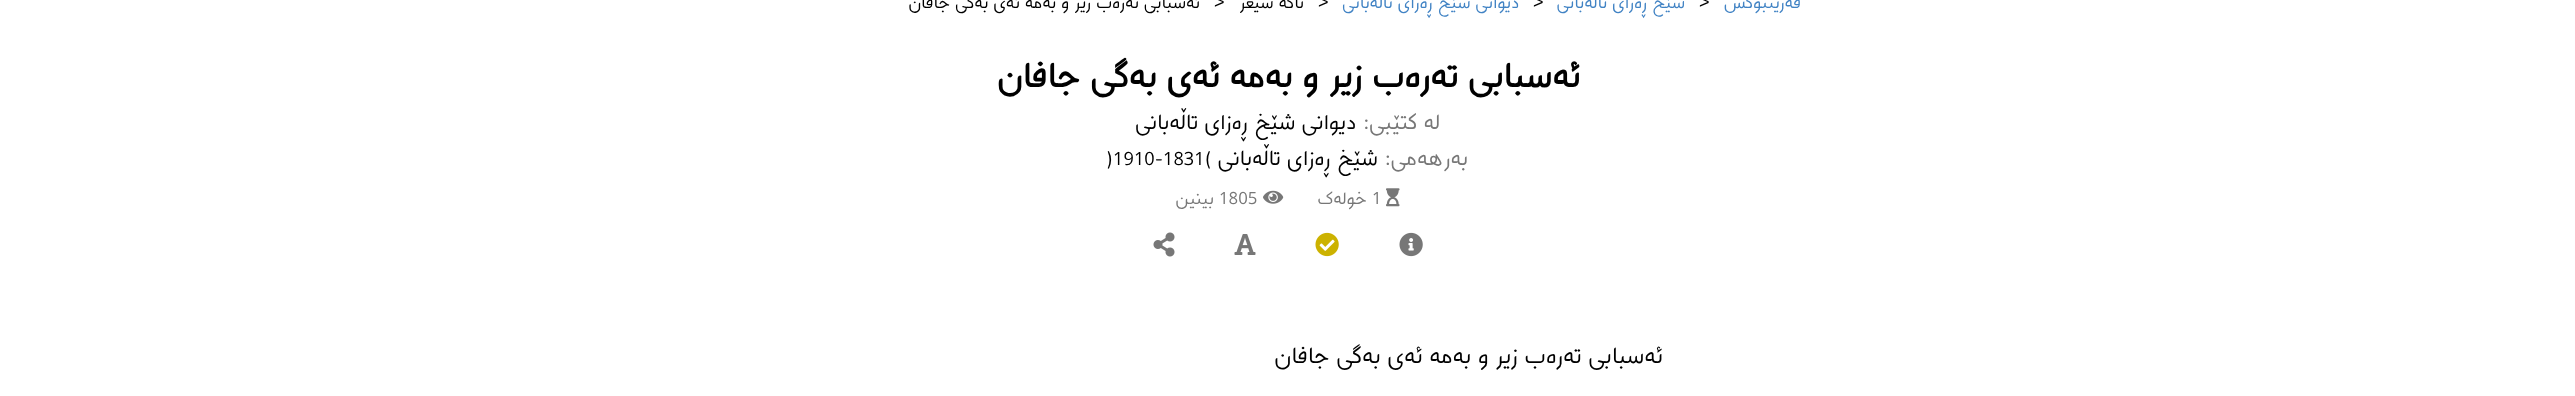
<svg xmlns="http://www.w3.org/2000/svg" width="2575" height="396">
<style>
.a{font:18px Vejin;direction:rtl;fill:#4183c4}
.b{font:18px Liberation Sans;fill:#000}
.c{font:18px Vejin;direction:rtl;fill:#000}
.d{font:bold 36px Vejin;direction:rtl;fill:#000}
.e{font:22.5px Vejin;direction:rtl;fill:#777}
.f{font:22.5px Vejin;direction:rtl;fill:#000}
.g{font:19.5px Vejin;fill:#000}
.h{font:18px Vejin;fill:#777}
.i{font:18px Vejin;direction:rtl;fill:#777}
.j{font:24px Vejin;direction:rtl;fill:#000}
</style>
<rect width="100%" height="100%" fill="#fff"/>
<image href="1.png" x="1386" y="188" width="14" height="19"/>
<image href="2.png" x="1263" y="190" width="21" height="14"/>
<image href="3.png" x="1399" y="232" width="24" height="25"/>
<image href="4.png" x="1315" y="232" width="24" height="25"/>
<image href="5.png" x="1234" y="234" width="22" height="21"/>
<image href="6.png" x="1153" y="232" width="22" height="25"/>
<text class="a" x="1801" y="8">ڤەژینبوکس</text>
<text class="b" x="1699" y="8">&gt;</text>
<text class="a" x="1685" y="8">شێخ ڕەزای تاڵەبانی</text>
<text class="b" x="1533" y="8">&gt;</text>
<text class="a" x="1519" y="8">دیوانی شێخ ڕەزای تاڵەبانی</text>
<text class="b" x="1318" y="8">&gt;</text>
<text class="c" x="1304" y="8">تاکە شیعر</text>
<text class="b" x="1214" y="8">&gt;</text>
<text class="c" x="1200" y="8">ئەسبابی تەرەب زیر و بەمە ئەی بەگی جافان</text>
<text class="d" x="1580" y="87">ئەسبابی تەرەب زیر و بەمە ئەی بەگی جافان</text>
<text class="e" x="1440" y="129">لە کتێبی:</text>
<text class="f" x="1356" y="129">دیوانی شێخ ڕەزای تاڵەبانی</text>
<text class="e" x="1468" y="165">بەرهەمی:</text>
<text class="f" x="1378" y="165">شێخ ڕەزای تاڵەبانی</text>
<text class="g" x="1107" y="165">)1910-1831(</text>
<text class="h" x="1372" y="204">1</text>
<text class="i" x="1367" y="204">خولەک</text>
<text class="h" x="1219" y="204">1805</text>
<text class="i" x="1214" y="204">بینین</text>
<text class="j" x="1663" y="363">ئەسبابی تەرەب زیر و بەمە ئەی بەگی جافان</text>
</svg>
